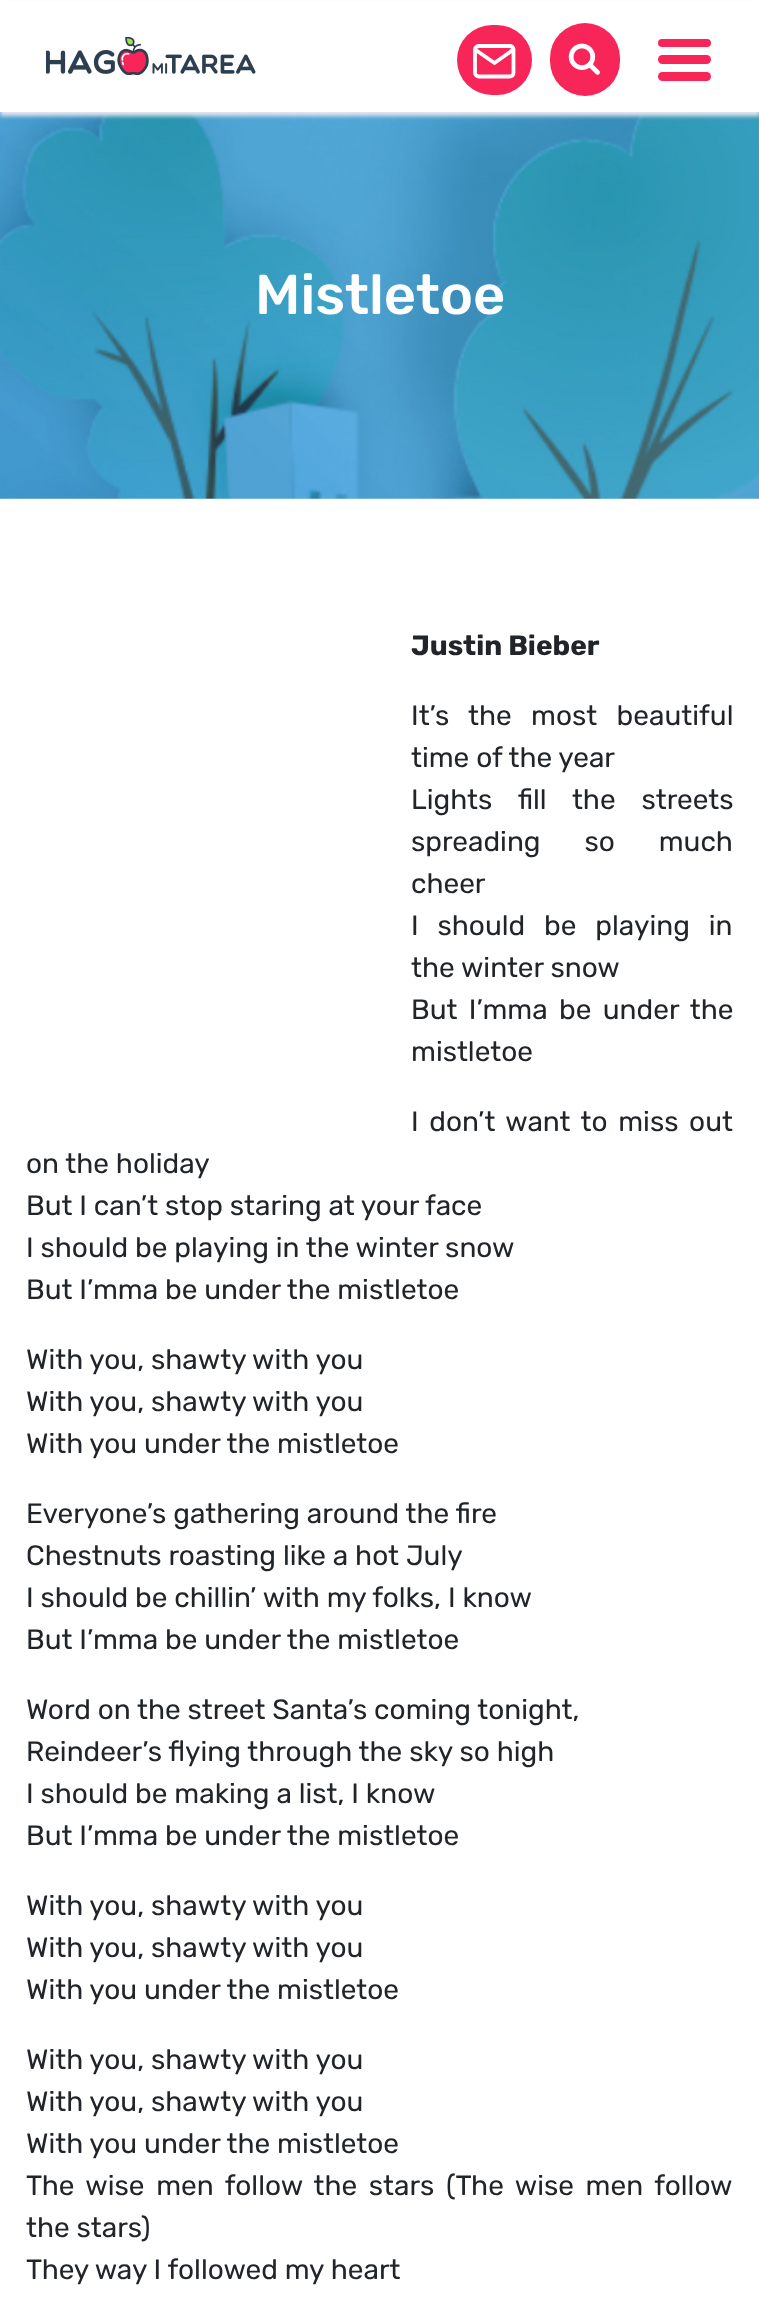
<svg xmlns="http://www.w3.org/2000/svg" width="759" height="2303">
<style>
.a{font:500 56px Rubik;fill:#fff}
.b{font:bold 28px Rubik;fill:#212529}
.c{font:28px Rubik;fill:#212529}
</style>
<rect width="100%" height="100%" fill="#fff"/>
<image href="3.png" x="0" y="112" width="759" height="387"/>
<path fill="#e5e6ef" filter="blur(2px)" d="M0 4h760v112H0z"/>
<path fill="#fff" d="M0 1h759v111H0z"/>
<image href="1.png" x="46" y="37" width="210" height="38"/>
<rect fill="#f82558" x="457" y="25" width="75" height="70" rx="35"/>
<path fill="none" stroke="#fff" stroke-width="3.8" stroke-linecap="round" stroke-linejoin="round" d="M479 46h30.5c2.5 0 4 1.5 4 3.5v23.5c0 2-1.5 3.5-4 3.5h-30.5c-2 0-4-1.5-4-3.5v-23.5c0-2 2-3.5 4-3.5zm34.5 3.5l-19 13.5l-19.5-13.5"/>
<rect fill="#f82558" x="550" y="23" width="70" height="73" rx="35"/>
<image href="2.png" x="568" y="43" width="32" height="32"/>
<rect fill="#f82558" x="658" y="39" width="53" height="8" rx="4"/>
<rect fill="#f82558" x="658" y="55" width="53" height="9" rx="4.5"/>
<rect fill="#f82558" x="658" y="72" width="53" height="9" rx="4.5"/>
<text class="a" x="255" y="314">Mistletoe</text>
<text class="b" x="411" y="655">Justin Bieber</text>
<text class="c" x="411" y="725" word-spacing="12.5">It’s the most beautiful</text>
<text class="c" x="411" y="767">time of the year</text>
<text class="c" x="411" y="809" word-spacing="19">Lights fill the streets</text>
<text class="c" x="411" y="851" word-spacing="37">spreading so much</text>
<text class="c" x="411" y="893">cheer</text>
<text class="c" x="411" y="935" word-spacing="12">I should be playing in</text>
<text class="c" x="411" y="977">the winter snow</text>
<text class="c" x="411" y="1019" word-spacing="4.5">But I’mma be under the</text>
<text class="c" x="411" y="1061">mistletoe</text>
<text class="c" x="411" y="1131" word-spacing="3.75">I don’t want to miss out</text>
<text class="c" x="26" y="1173">on the holiday</text>
<text class="c" x="26" y="1215">But I can’t stop staring at your face</text>
<text class="c" x="26" y="1257">I should be playing in the winter snow</text>
<text class="c" x="26" y="1299">But I’mma be under the mistletoe</text>
<text class="c" x="26" y="1369">With you, shawty with you</text>
<text class="c" x="26" y="1411">With you, shawty with you</text>
<text class="c" x="26" y="1453">With you under the mistletoe</text>
<text class="c" x="26" y="1523">Everyone’s gathering around the fire</text>
<text class="c" x="26" y="1565">Chestnuts roasting like a hot July</text>
<text class="c" x="26" y="1607">I should be chillin’ with my folks, I know</text>
<text class="c" x="26" y="1649">But I’mma be under the mistletoe</text>
<text class="c" x="26" y="1719">Word on the street Santa’s coming tonight,</text>
<text class="c" x="26" y="1761">Reindeer’s flying through the sky so high</text>
<text class="c" x="26" y="1803">I should be making a list, I know</text>
<text class="c" x="26" y="1845">But I’mma be under the mistletoe</text>
<text class="c" x="26" y="1915">With you, shawty with you</text>
<text class="c" x="26" y="1957">With you, shawty with you</text>
<text class="c" x="26" y="1999">With you under the mistletoe</text>
<text class="c" x="26" y="2069">With you, shawty with you</text>
<text class="c" x="26" y="2111">With you, shawty with you</text>
<text class="c" x="26" y="2153">With you under the mistletoe</text>
<text class="c" x="26" y="2195" word-spacing="4.75">The wise men follow the stars (The wise men follow</text>
<text class="c" x="26" y="2237">the stars)</text>
<text class="c" x="26" y="2279">They way I followed my heart</text>
</svg>
